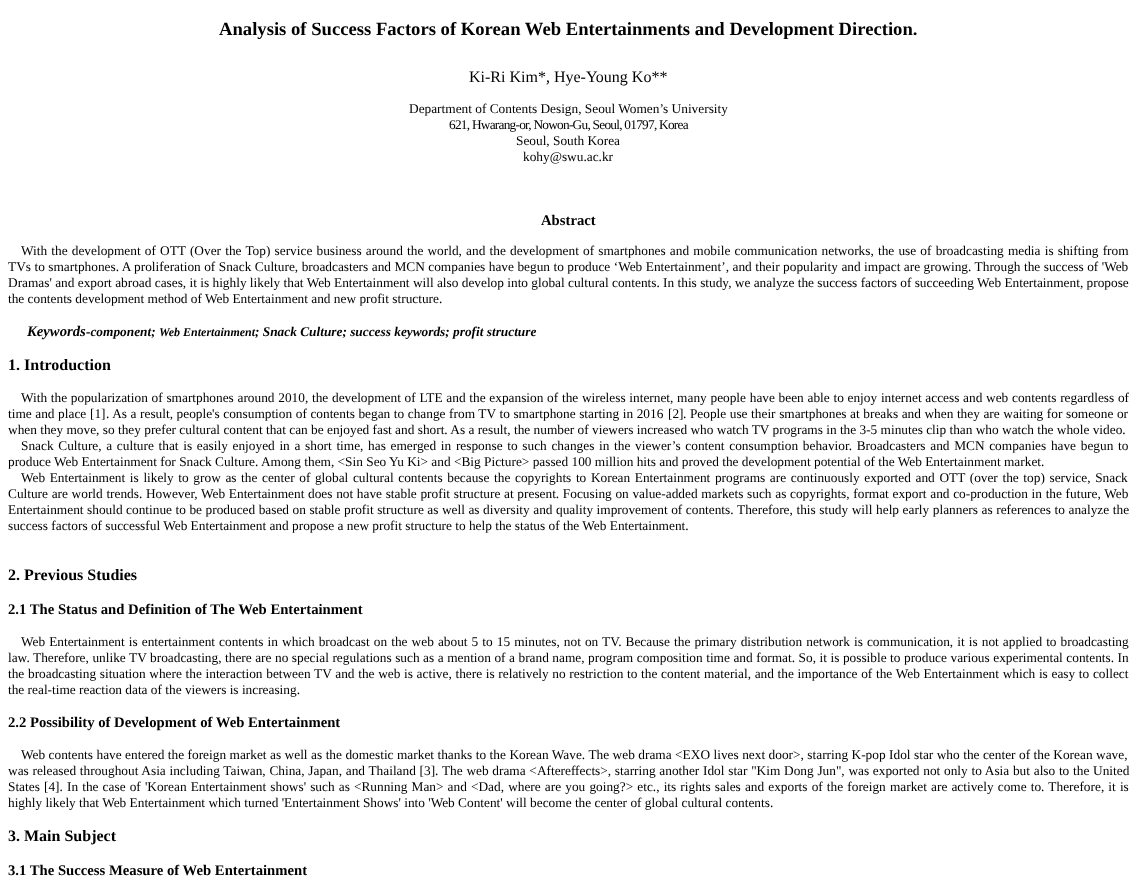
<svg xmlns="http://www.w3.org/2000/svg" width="1137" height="889">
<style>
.a{font:bold 18.65px Liberation Serif;fill:#000}
.b{font:16px Liberation Serif;fill:#000}
.c{font:13.33px Liberation Serif;fill:#000}
.d{font:13.33px Liberation Serif;letter-spacing:-0.75px;fill:#000}
.e{font:bold 14.7px Liberation Serif;fill:#000}
.f{font:italic bold 14.7px Liberation Serif;fill:#000}
.g{font:italic bold 13.33px Liberation Serif;fill:#000}
.h{font:italic bold 12px Liberation Serif;fill:#000}
.i{font:bold 16px Liberation Serif;fill:#000}
</style>
<rect width="100%" height="100%" fill="#fff"/>
<text class="a" x="219" y="35">Analysis of Success Factors of Korean Web Entertainments and Development Direction.</text>
<text class="b" x="469" y="82">Ki-Ri Kim*, Hye-Young Ko**</text>
<text class="c" x="409" y="113">Department of Contents Design, Seoul Women’s University</text>
<text class="d" x="449" y="129">621, Hwarang-or, Nowon-Gu, Seoul, 01797, Korea</text>
<text class="c" x="516" y="145">Seoul, South Korea</text>
<text class="c" x="523" y="161">kohy@swu.ac.kr</text>
<text class="e" x="541" y="225">Abstract</text>
<text class="c" x="21" y="255" word-spacing="0.85">With the development of OTT (Over the Top) service business around the world, and the development of smartphones and mobile communication networks, the use of broadcasting media is shifting from</text>
<text class="c" x="8" y="271" word-spacing="0.15">TVs to smartphones. A proliferation of Snack Culture, broadcasters and MCN companies have begun to produce ‘Web Entertainment’, and their popularity and impact are growing. Through the success of 'Web</text>
<text class="c" x="8" y="287">Dramas' and export abroad cases, it is highly likely that Web Entertainment will also develop into global cultural contents. In this study, we analyze the success factors of succeeding Web Entertainment, propose</text>
<text class="c" x="8" y="303">the contents development method of Web Entertainment and new profit structure.</text>
<text class="f" x="27" y="336">Keywords</text>
<text class="g" x="86" y="336">-component;</text>
<text class="h" x="159" y="336">Web Entertainment</text>
<text class="g" x="255" y="336">; Snack Culture; success keywords; profit structure</text>
<text class="i" x="8" y="370">1. Introduction</text>
<text class="c" x="21" y="402" word-spacing="0.4">With the popularization of smartphones around 2010, the development of LTE and the expansion of the wireless internet, many people have been able to enjoy internet access and web contents regardless of</text>
<text class="c" x="8" y="418" word-spacing="0.25">time and place</text>
<text class="c" x="90" y="418">[1]</text>
<text class="c" x="106" y="418" word-spacing="0.25">. As a result, people's consumption of contents began to change from TV to smartphone starting in 2016</text>
<text class="c" x="668" y="418">[2]</text>
<text class="c" x="683" y="418" word-spacing="0.25">. People use their smartphones at breaks and when they are waiting for someone or</text>
<text class="c" x="8" y="434">when they move, so they prefer cultural content that can be enjoyed fast and short. As a result, the number of viewers increased who watch TV programs in the 3-5 minutes clip than who watch the whole video.</text>
<text class="c" x="21" y="450" word-spacing="1.35">Snack Culture, a culture that is easily enjoyed in a short time, has emerged in response to such changes in the viewer’s content consumption behavior. Broadcasters and MCN companies have begun to</text>
<text class="c" x="8" y="466">produce Web Entertainment for Snack Culture. Among them, &lt;Sin Seo Yu Ki&gt; and &lt;Big Picture&gt; passed 100 million hits and proved the development potential of the Web Entertainment market.</text>
<text class="c" x="21" y="482" word-spacing="1.3">Web Entertainment is likely to grow as the center of global cultural contents because the copyrights to Korean Entertainment programs are continuously exported and OTT (over the top) service, Snack</text>
<text class="c" x="8" y="498" word-spacing="0.35">Culture are world trends. However, Web Entertainment does not have stable profit structure at present. Focusing on value-added markets such as copyrights, format export and co-production in the future, Web</text>
<text class="c" x="8" y="514" word-spacing="0.2">Entertainment should continue to be produced based on stable profit structure as well as diversity and quality improvement of contents.</text>
<text class="c" x="737" y="514" word-spacing="0.25">Therefore, this study will help early planners as references to analyze the</text>
<text class="c" x="8" y="530">success factors of successful Web Entertainment and propose a new profit structure to help the status of the Web Entertainment.</text>
<text class="i" x="8" y="580">2. Previous Studies</text>
<text class="e" x="8" y="614">2.1 The Status and Definition of The Web Entertainment</text>
<text class="c" x="21" y="646" word-spacing="0.75">Web Entertainment is entertainment contents in which broadcast on the web about 5 to 15 minutes, not on TV. Because the primary distribution network is communication, it is not applied to broadcasting</text>
<text class="c" x="8" y="662" word-spacing="0.2">law. Therefore, unlike TV broadcasting, there are no special regulations such as a mention of a brand name, program composition time and format. So, it is possible to produce various experimental contents. In</text>
<text class="c" x="8" y="678" word-spacing="0.35">the broadcasting situation where the interaction between TV and the web is active, there is relatively no restriction to the content material, and the importance of the Web Entertainment which is easy to collect</text>
<text class="c" x="8" y="694">the real-time reaction data of the viewers is increasing.</text>
<text class="e" x="8" y="727">2.2 Possibility of Development of Web Entertainment</text>
<text class="c" x="21" y="759" word-spacing="0.15">Web contents have entered the foreign market as well as the domestic market thanks to the Korean Wave. The web drama &lt;EXO lives next door&gt;, starring K-pop Idol star who the center of the Korean wave,</text>
<text class="c" x="8" y="775" word-spacing="0.4">was released throughout Asia including Taiwan, China, Japan, and Thailand [3]. The web drama &lt;Aftereffects&gt;, starring another Idol star "Kim Dong Jun", was exported not only to Asia but also to the United</text>
<text class="c" x="8" y="791" word-spacing="0.8">States [4]. In the case of 'Korean Entertainment shows' such as &lt;Running Man&gt; and &lt;Dad, where are you going?&gt; etc., its rights sales and exports of the foreign market are actively come to. Therefore, it is</text>
<text class="c" x="8" y="807">highly likely that Web Entertainment which turned 'Entertainment Shows' into 'Web Content' will become the center of global cultural contents.</text>
<text class="i" x="8" y="841">3. Main Subject</text>
<text class="e" x="8" y="875">3.1 The Success Measure of Web Entertainment</text>
</svg>
